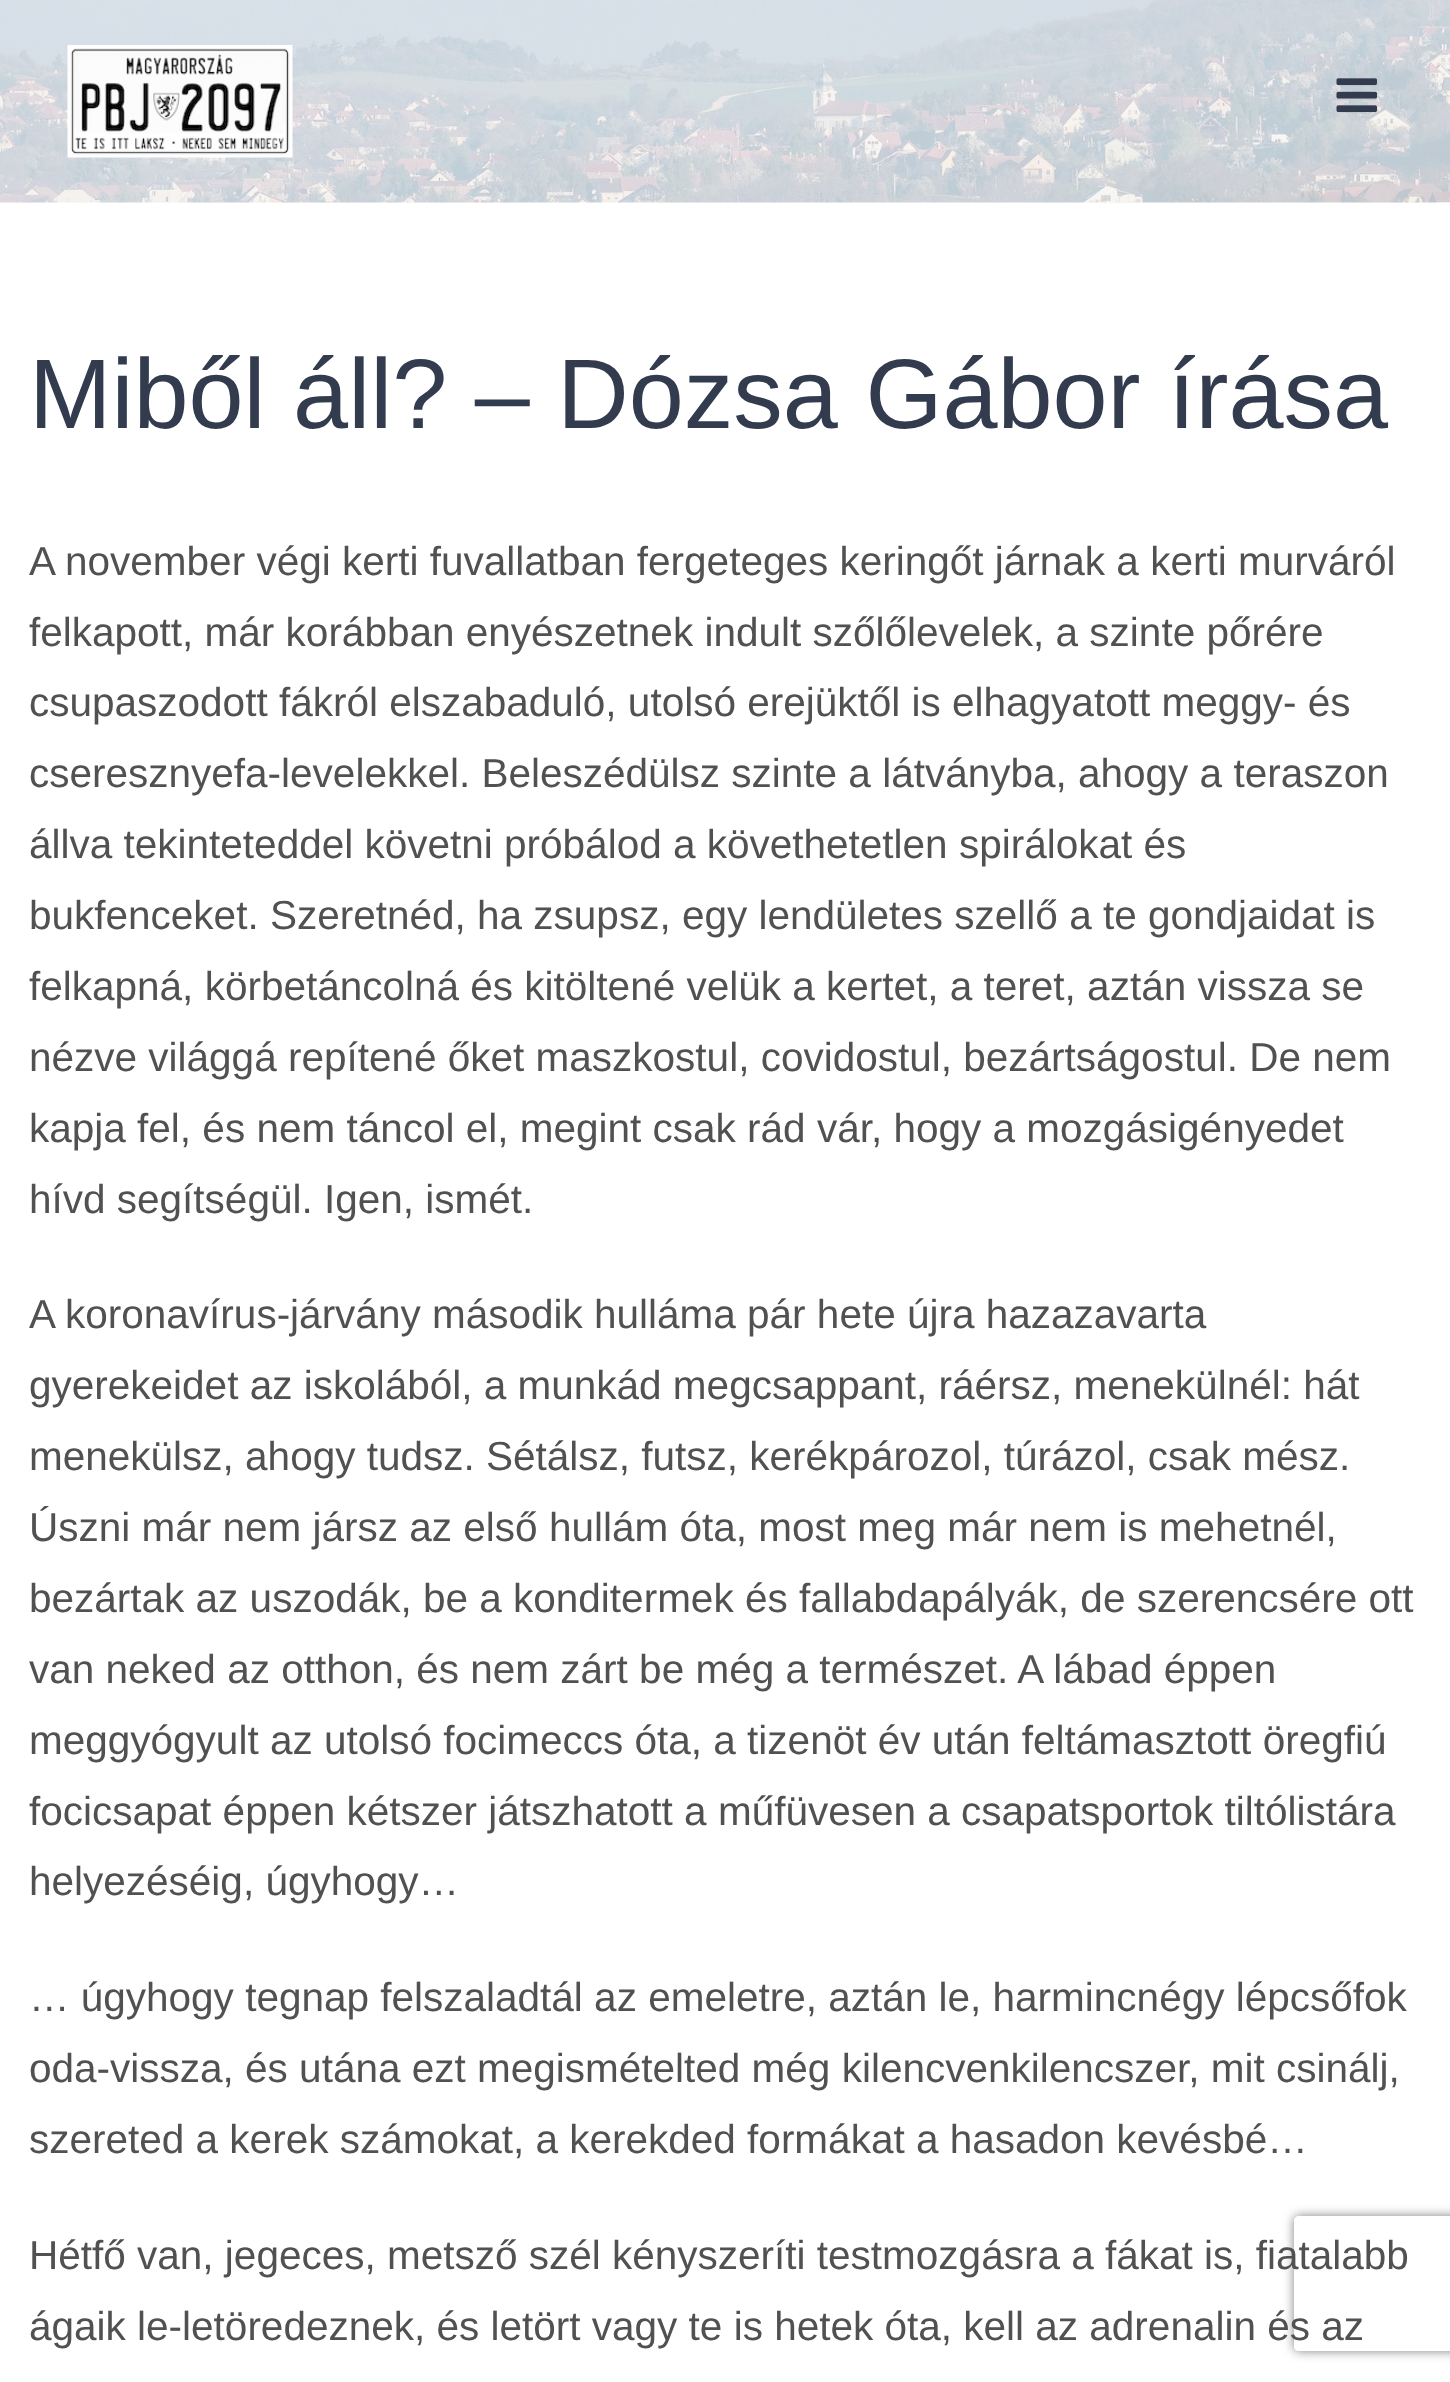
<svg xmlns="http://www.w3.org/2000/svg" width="1450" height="2382">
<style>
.a{font:99px Liberation Sans;fill:#333c4e}
.b{font:40.5px Liberation Sans;fill:#515151}
</style>
<defs>
<clipPath id="clip1"><path d="M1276 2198h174v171h-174zm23 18h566c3 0 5 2 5 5v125c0 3-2 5-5 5h-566c-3 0-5-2-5-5v-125c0-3 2-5 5-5z" clip-rule="evenodd"/></clipPath>
</defs>
<rect width="100%" height="100%" fill="#fff"/>
<image href="1.png" x="0" y="0" width="1450" height="203"/>
<image href="2.png" x="67" y="45" width="226" height="113"/>
<image href="3.png" x="1336" y="78" width="41" height="35"/>
<g clip-path="url(#clip1)">
<rect fill="#808080" filter="blur(5.5px)" x="1294" y="2216" width="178" height="135" rx="5"/>
</g>
<text class="a" x="29" y="428">Miből áll? – Dózsa Gábor írása</text>
<text class="b" x="29" y="575">A november végi kerti fuvallatban fergeteges keringőt járnak a kerti murváról</text>
<text class="b" x="29" y="646">felkapott, már korábban enyészetnek indult szőlőlevelek, a szinte pőrére</text>
<text class="b" x="29" y="716">csupaszodott fákról elszabaduló, utolsó erejüktől is elhagyatott meggy- és</text>
<text class="b" x="29" y="787">cseresznyefa-levelekkel. Beleszédülsz szinte a látványba, ahogy a teraszon</text>
<text class="b" x="29" y="858">állva tekinteteddel követni próbálod a követhetetlen spirálokat és</text>
<text class="b" x="29" y="929">bukfenceket. Szeretnéd, ha zsupsz, egy lendületes szellő a te gondjaidat is</text>
<text class="b" x="29" y="1000">felkapná, körbetáncolná és kitöltené velük a kertet, a teret, aztán vissza se</text>
<text class="b" x="29" y="1071">nézve világgá repítené őket maszkostul, covidostul, bezártságostul. De nem</text>
<text class="b" x="29" y="1142">kapja fel, és nem táncol el, megint csak rád vár, hogy a mozgásigényedet</text>
<text class="b" x="29" y="1213">hívd segítségül. Igen, ismét.</text>
<text class="b" x="29" y="1328">A koronavírus-járvány második hulláma pár hete újra hazazavarta</text>
<text class="b" x="29" y="1399">gyerekeidet az iskolából, a munkád megcsappant, ráérsz, menekülnél: hát</text>
<text class="b" x="29" y="1470">menekülsz, ahogy tudsz. Sétálsz, futsz, kerékpározol, túrázol, csak mész.</text>
<text class="b" x="29" y="1541">Úszni már nem jársz az első hullám óta, most meg már nem is mehetnél,</text>
<text class="b" x="29" y="1612">bezártak az uszodák, be a konditermek és fallabdapályák, de szerencsére ott</text>
<text class="b" x="29" y="1683">van neked az otthon, és nem zárt be még a természet. A lábad éppen</text>
<text class="b" x="29" y="1754">meggyógyult az utolsó focimeccs óta, a tizenöt év után feltámasztott öregfiú</text>
<text class="b" x="29" y="1825">focicsapat éppen kétszer játszhatott a műfüvesen a csapatsportok tiltólistára</text>
<text class="b" x="29" y="1895">helyezéséig, úgyhogy…</text>
<text class="b" x="29" y="2011">… úgyhogy tegnap felszaladtál az emeletre, aztán le, harmincnégy lépcsőfok</text>
<text class="b" x="29" y="2082">oda-vissza, és utána ezt megismételted még kilencvenkilencszer, mit csinálj,</text>
<text class="b" x="29" y="2153">szereted a kerek számokat, a kerekded formákat a hasadon kevésbé…</text>
<text class="b" x="29" y="2269">Hétfő van, jegeces, metsző szél kényszeríti testmozgásra a fákat is, fiatalabb</text>
<text class="b" x="29" y="2340">ágaik le-letöredeznek, és letört vagy te is hetek óta, kell az adrenalin és az</text>
</svg>
